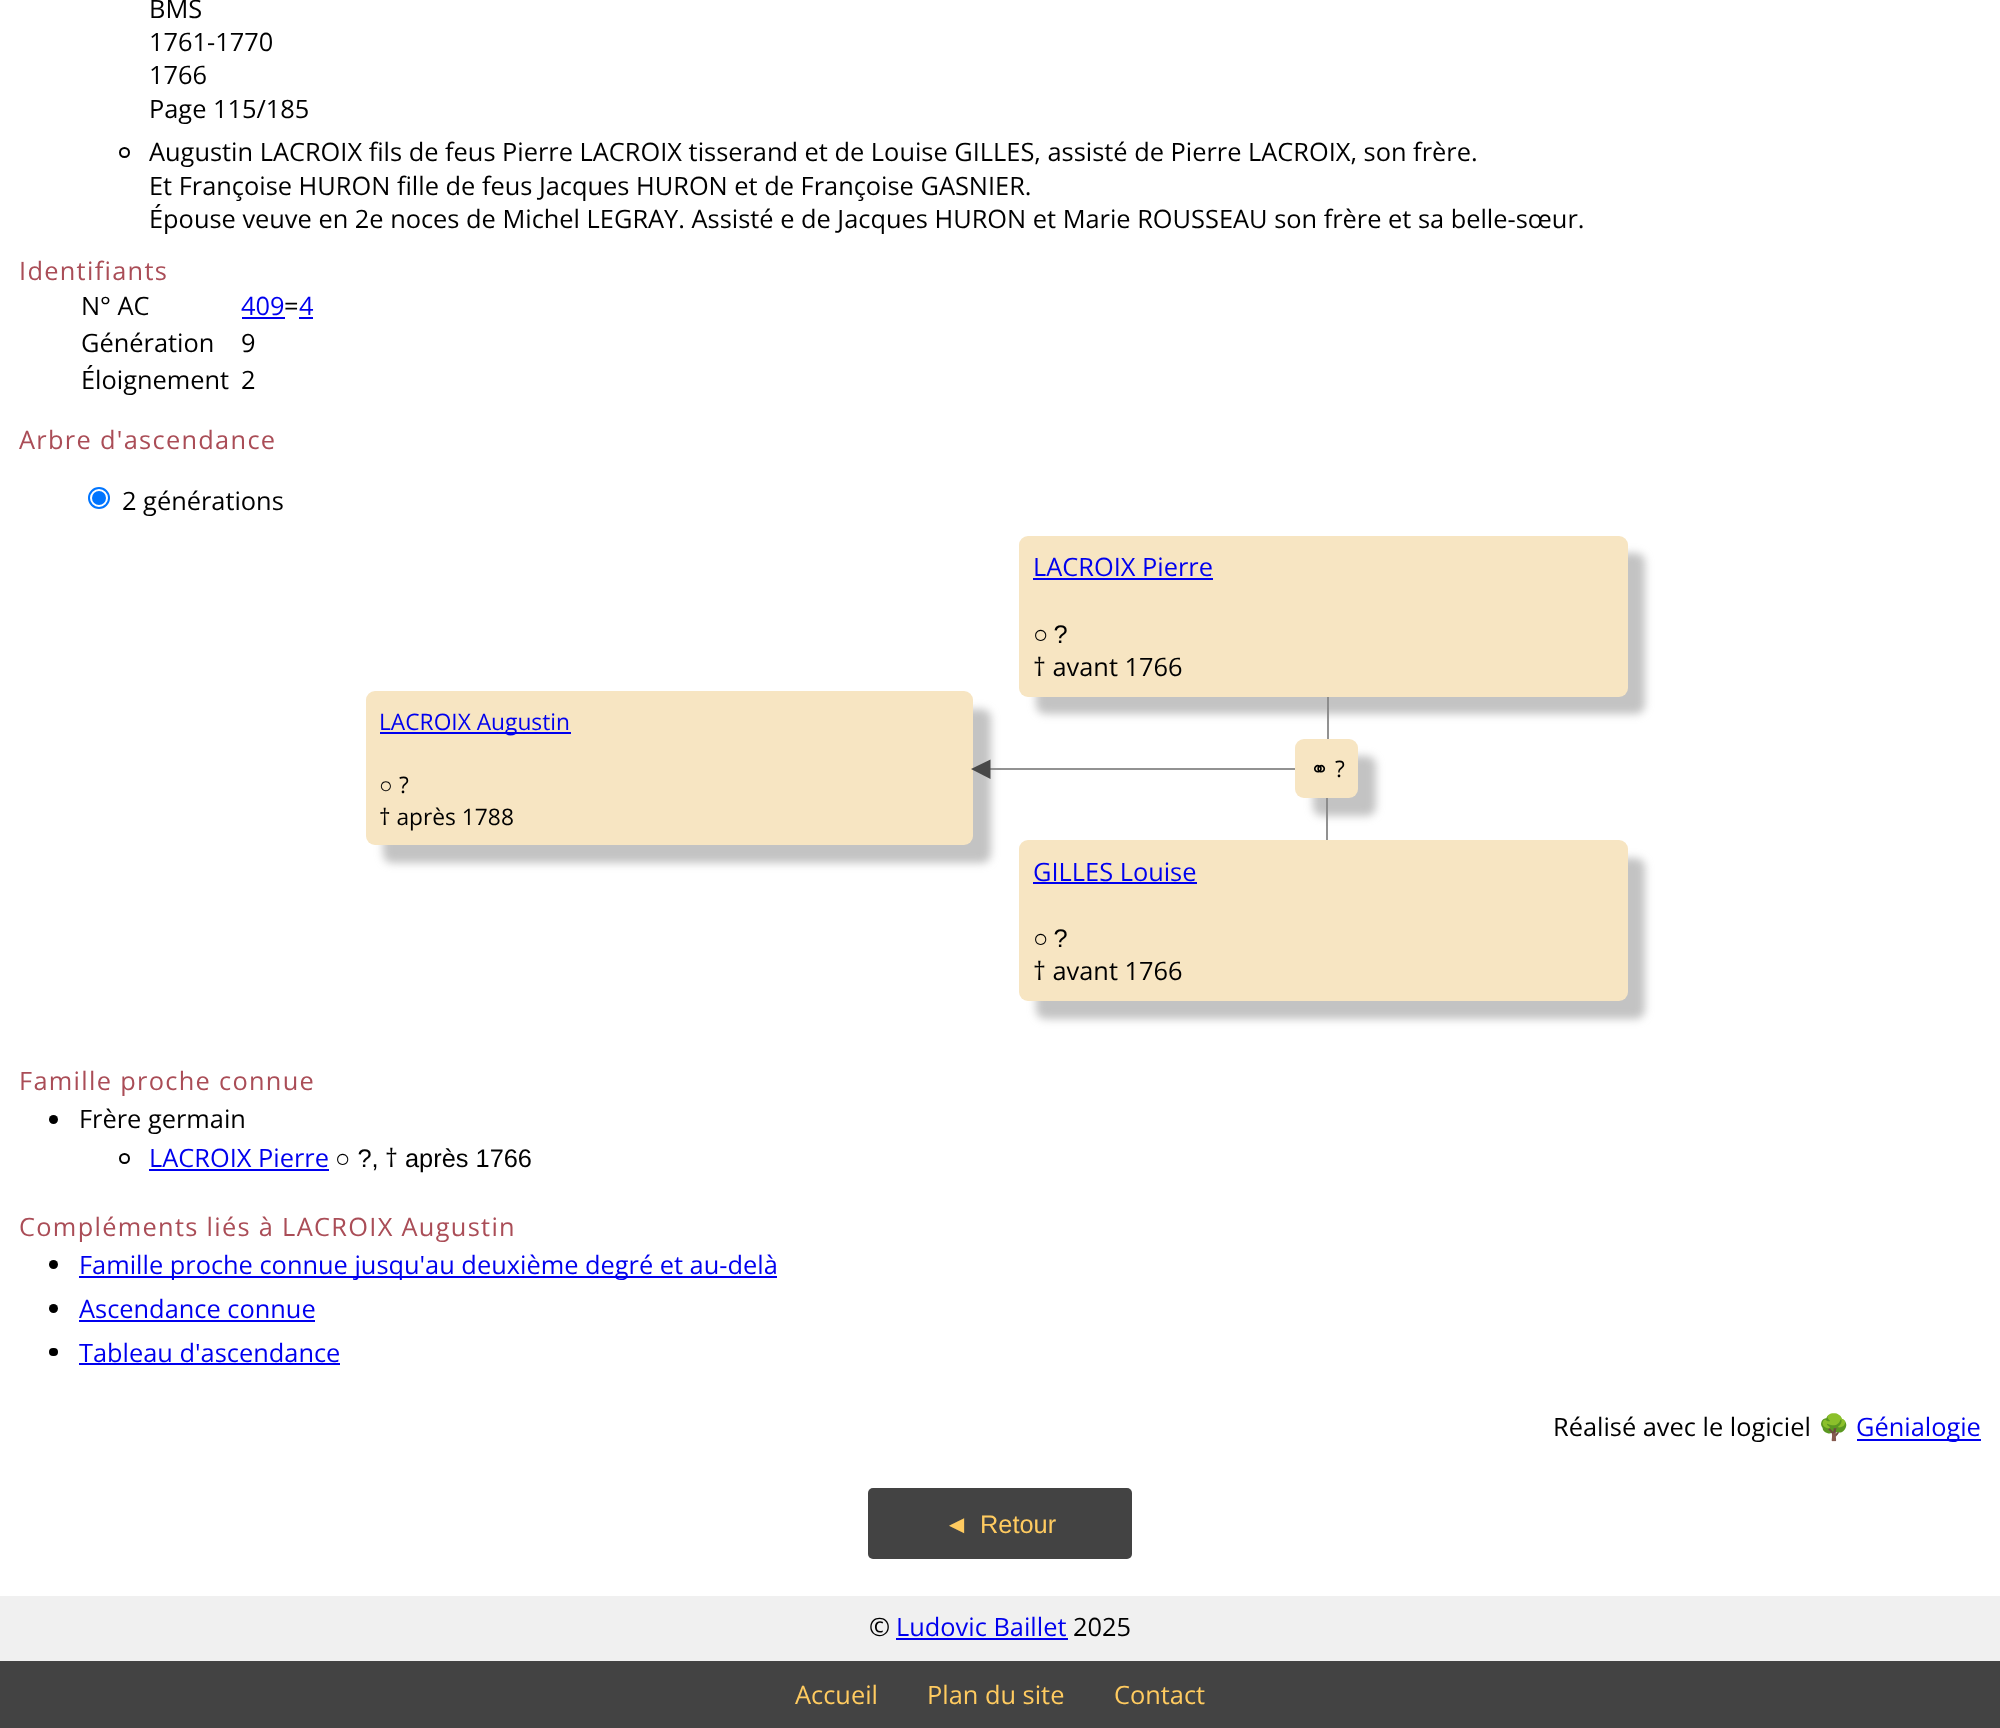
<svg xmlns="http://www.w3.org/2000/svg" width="2000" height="1728">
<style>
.a{font:25.38px Open Sans;fill:#000}
.b{font:25.38px Open Sans;letter-spacing:1.3px;fill:#aa4d57}
.c{font:25.38px Open Sans;fill:#00e}
.d{font:22.75px Open Sans;fill:#00e}
.e{font:22.75px Liberation Sans;fill:#000}
.f{font:22.75px Open Sans;fill:#000}
.g{font:25.38px Liberation Sans;fill:#000}
.h{font:22.75px DejaVu Sans;fill:#000}
.i{font:25.38px Noto Color Emoji;fill:#000}
.j{font:25.38px Liberation Sans;fill:#ffcb60}
.k{font:25.38px Open Sans;fill:#ffcb60}
</style>
<rect width="100%" height="100%" fill="#f0f0f0"/>
<path fill="#fff" d="M0 0h2000v1596H0z"/>
<circle fill="none" stroke="#000" stroke-width="2" cx="124.5" cy="152.5" r="4.5"/>
<path fill="#00e" d="M242 317h43v2H242z"/>
<path fill="#00e" d="M299 317h14v2H299z"/>
<circle fill="none" stroke="#0075ff" stroke-width="2" cx="99" cy="498" r="10"/>
<circle fill="#0075ff" cx="99" cy="498" r="7"/>
<path fill="#929292" d="M674 768h654l-2 2h-652z"/>
<rect fill="#88888880" filter="blur(4.5px)" x="383" y="709" width="608" height="154" rx="9"/>
<rect fill="#f7e5c2" x="366" y="691" width="607" height="154" rx="9"/>
<path fill="#00e" d="M380 732h191v2H380z"/>
<path fill="#929292" d="M1327 697h2v42H1327z"/>
<rect fill="#88888880" filter="blur(4.5px)" x="1036" y="553" width="609" height="161" rx="9"/>
<rect fill="#f7e5c2" x="1019" y="536" width="609" height="161" rx="9"/>
<path fill="#00e" d="M1033 578h180v2H1033z"/>
<path fill="#24242480" d="M1328 768v137h-2v-135z"/>
<rect fill="#88888880" filter="blur(4.5px)" x="1313" y="756" width="63" height="60" rx="9"/>
<rect fill="#f7e5c2" x="1295" y="739" width="63" height="59" rx="9"/>
<path fill="#484848" d="M971 769l19.5-9.5v19.5z"/>
<rect fill="#88888880" filter="blur(4.5px)" x="1036" y="858" width="609" height="161" rx="9"/>
<rect fill="#f7e5c2" x="1019" y="840" width="609" height="161" rx="9"/>
<path fill="#00e" d="M1033 882h164v2H1033z"/>
<circle fill="#000" cx="53.5" cy="1119.5" r="4.5"/>
<circle fill="none" stroke="#000" stroke-width="2" cx="124.5" cy="1158.5" r="4.5"/>
<path fill="#00e" d="M149 1169h180v2H149z"/>
<circle fill="#000" cx="53.5" cy="1264.5" r="4.5"/>
<path fill="#00e" d="M79 1276h698v2H79z"/>
<circle fill="#000" cx="53.5" cy="1308.5" r="4.5"/>
<path fill="#00e" d="M79 1320h236v2H79z"/>
<rect fill="#000" x="49" y="1348" width="9" height="8" rx="4"/>
<path fill="#00e" d="M79 1363h261v2H79z"/>
<path fill="#00e" d="M1857 1439h124v2H1857z"/>
<rect fill="#434343" x="868" y="1488" width="264" height="71" rx="5"/>
<path fill="#00e" d="M896 1638h172v2H896z"/>
<path fill="#434343" d="M0 1661h2000v67H0z"/>
<text class="a" x="149" y="18">BMS</text>
<text class="a" x="149" y="51">1761-1770</text>
<text class="a" x="149" y="84">1766</text>
<text class="a" x="149" y="118">Page 115/185</text>
<text class="a" x="149" y="161">Augustin LACROIX fils de feus Pierre LACROIX tisserand et de Louise GILLES, assisté de Pierre LACROIX, son frère.</text>
<text class="a" x="149" y="195">Et Françoise HURON fille de feus Jacques HURON et de Françoise GASNIER.</text>
<text class="a" x="149" y="228">Épouse veuve en 2e noces de Michel LEGRAY. Assisté e de Jacques HURON et Marie ROUSSEAU son frère et sa belle-sœur.</text>
<text class="b" x="19" y="280">Identifiants</text>
<text class="a" x="81" y="315">N° AC</text>
<text class="c" x="241" y="315">409</text>
<text class="a" x="284" y="315">=</text>
<text class="c" x="299" y="315">4</text>
<text class="a" x="81" y="352">Génération</text>
<text class="a" x="241" y="352">9</text>
<text class="a" x="81" y="389">Éloignement</text>
<text class="a" x="241" y="389">2</text>
<text class="b" x="19" y="449">Arbre d'ascendance</text>
<text class="a" x="122" y="510">2 générations</text>
<text class="d" x="379" y="730">LACROIX Augustin</text>
<text class="e" x="379" y="793">○</text>
<text class="f" x="399" y="793">?</text>
<text class="f" x="379" y="825">† après 1788</text>
<text class="c" x="1033" y="576">LACROIX Pierre</text>
<text class="g" x="1033" y="643" word-spacing="-2">○ ?</text>
<text class="a" x="1033" y="676">† avant 1766</text>
<text class="h" x="1310" y="777">⚭</text>
<text class="f" x="1335" y="777">?</text>
<text class="c" x="1033" y="881">GILLES Louise</text>
<text class="g" x="1033" y="947" word-spacing="-2">○ ?</text>
<text class="a" x="1033" y="980">† avant 1766</text>
<text class="b" x="19" y="1090">Famille proche connue</text>
<text class="a" x="79" y="1128">Frère germain</text>
<text class="c" x="149" y="1167">LACROIX Pierre</text>
<text class="g" x="335" y="1167">○ ?,</text>
<text class="a" x="385" y="1167">†</text>
<text class="g" x="405" y="1167">après 1766</text>
<text class="b" x="19" y="1236">Compléments liés à LACROIX Augustin</text>
<text class="c" x="79" y="1274">Famille proche connue jusqu'au deuxième degré et au-delà</text>
<text class="c" x="79" y="1318">Ascendance connue</text>
<text class="c" x="79" y="1362">Tableau d'ascendance</text>
<text class="a" x="1553" y="1436">Réalisé avec le logiciel</text>
<text class="i" x="1818" y="1436">🌳</text>
<text class="c" x="1856" y="1436">Génialogie</text>
<text class="j" x="944" y="1533">◄</text>
<text class="j" x="980" y="1533">Retour</text>
<text class="a" x="869" y="1636">©</text>
<text class="c" x="896" y="1636">Ludovic Baillet</text>
<text class="a" x="1073" y="1636">2025</text>
<text class="k" x="795" y="1704">Accueil</text>
<text class="k" x="927" y="1704">Plan du site</text>
<text class="k" x="1114" y="1704">Contact</text>
</svg>
